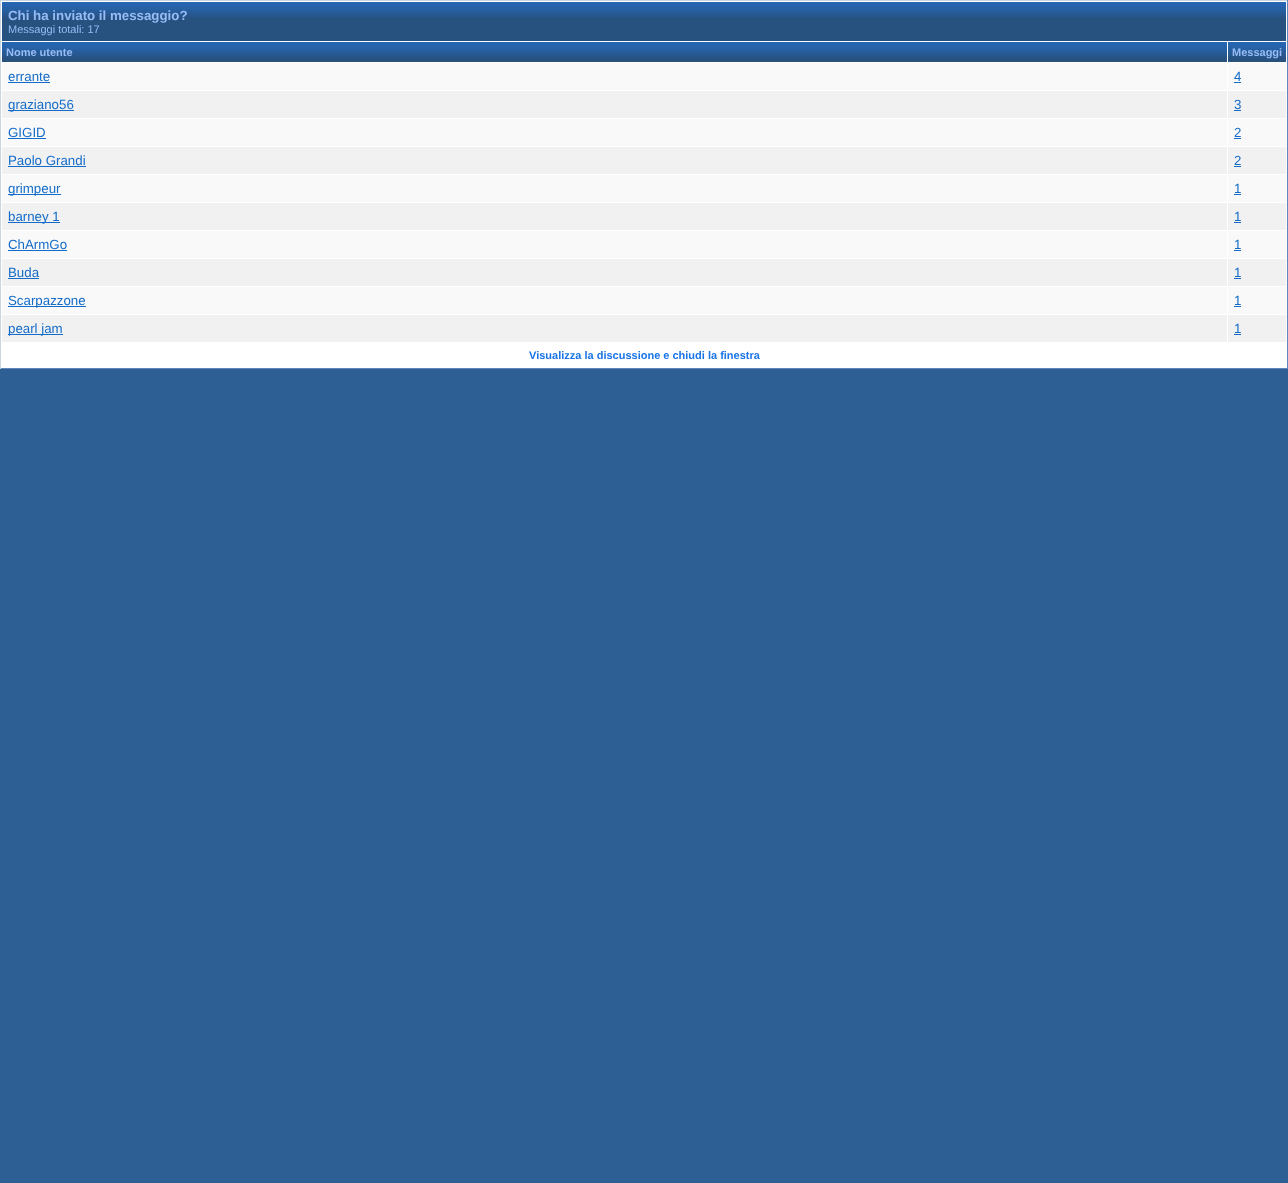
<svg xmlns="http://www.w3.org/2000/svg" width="1288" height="1183">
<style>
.a{font:bold 13.3px Liberation Sans;fill:#97bcf5}
.b{font:11px Liberation Sans;fill:#97bcf5}
.c{font:bold 11px Liberation Sans;fill:#97bcf5}
.d{font:13.3px Liberation Sans;fill:#146cc8}
.e{font:bold 11px Liberation Sans;fill:#1874e7}
</style>
<rect width="100%" height="100%" fill="#2d5e94"/>
<path fill="#fff" d="M1 1h1286v367H1z"/>
<path fill="#c7d6e1" d="M0 0h1288v1H0z"/>
<path fill="#5f87be" d="M1287 0h1v369H1287z"/>
<path fill="#5f87be" d="M0 368h1288v1H0z"/>
<path fill="#c7d6e1" d="M0 0h1v369H0z"/>
<path fill="#275280" d="M2 18h1284v23H2z"/>
<image href="1.png" x="2" y="2" width="1284" height="16"/>
<path fill="#275280" d="M2 58h1225v4H2z"/>
<image href="2.png" x="2" y="42" width="1225" height="16"/>
<path fill="#275280" d="M1228 58h58v4H1228z"/>
<image href="3.png" x="1228" y="42" width="58" height="16"/>
<path fill="#f9f9f9" d="M2 63h1225v27H2z"/>
<path fill="#146cc8" d="M8 82h42v1H8z"/>
<path fill="#f9f9f9" d="M1228 63h58v27H1228z"/>
<path fill="#146cc8" d="M1234 82h7v1H1234z"/>
<path fill="#f1f1f1" d="M2 91h1225v27H2z"/>
<path fill="#146cc8" d="M8 110h66v1H8z"/>
<path fill="#f1f1f1" d="M1228 91h58v27H1228z"/>
<path fill="#146cc8" d="M1234 110h7v1H1234z"/>
<path fill="#f9f9f9" d="M2 119h1225v27H2z"/>
<path fill="#146cc8" d="M8 138h38v1H8z"/>
<path fill="#f9f9f9" d="M1228 119h58v27H1228z"/>
<path fill="#146cc8" d="M1234 138h7v1H1234z"/>
<path fill="#f1f1f1" d="M2 147h1225v27H2z"/>
<path fill="#146cc8" d="M8 166h78v1H8z"/>
<path fill="#f1f1f1" d="M1228 147h58v27H1228z"/>
<path fill="#146cc8" d="M1234 166h7v1H1234z"/>
<path fill="#f9f9f9" d="M2 175h1225v27H2z"/>
<path fill="#146cc8" d="M8 194h53v1H8z"/>
<path fill="#f9f9f9" d="M1228 175h58v27H1228z"/>
<path fill="#146cc8" d="M1234 194h7v1H1234z"/>
<path fill="#f1f1f1" d="M2 203h1225v27H2z"/>
<path fill="#146cc8" d="M8 222h52v1H8z"/>
<path fill="#f1f1f1" d="M1228 203h58v27H1228z"/>
<path fill="#146cc8" d="M1234 222h7v1H1234z"/>
<path fill="#f9f9f9" d="M2 231h1225v27H2z"/>
<path fill="#146cc8" d="M8 250h59v1H8z"/>
<path fill="#f9f9f9" d="M1228 231h58v27H1228z"/>
<path fill="#146cc8" d="M1234 250h7v1H1234z"/>
<path fill="#f1f1f1" d="M2 259h1225v27H2z"/>
<path fill="#146cc8" d="M8 278h31v1H8z"/>
<path fill="#f1f1f1" d="M1228 259h58v27H1228z"/>
<path fill="#146cc8" d="M1234 278h7v1H1234z"/>
<path fill="#f9f9f9" d="M2 287h1225v27H2z"/>
<path fill="#146cc8" d="M8 306h78v1H8z"/>
<path fill="#f9f9f9" d="M1228 287h58v27H1228z"/>
<path fill="#146cc8" d="M1234 306h7v1H1234z"/>
<path fill="#f1f1f1" d="M2 315h1225v27H2z"/>
<path fill="#146cc8" d="M8 334h55v1H8z"/>
<path fill="#f1f1f1" d="M1228 315h58v27H1228z"/>
<path fill="#146cc8" d="M1234 334h7v1H1234z"/>
<text class="a" x="8" y="20">Chi ha inviato il messaggio?</text>
<text class="b" x="8" y="33">Messaggi totali: 17</text>
<text class="c" x="6" y="56">Nome utente</text>
<text class="c" x="1232" y="56">Messaggi</text>
<text class="d" x="8" y="81">errante</text>
<text class="d" x="1234" y="81">4</text>
<text class="d" x="8" y="109">graziano56</text>
<text class="d" x="1234" y="109">3</text>
<text class="d" x="8" y="137">GIGID</text>
<text class="d" x="1234" y="137">2</text>
<text class="d" x="8" y="165">Paolo Grandi</text>
<text class="d" x="1234" y="165">2</text>
<text class="d" x="8" y="193">grimpeur</text>
<text class="d" x="1234" y="193">1</text>
<text class="d" x="8" y="221">barney 1</text>
<text class="d" x="1234" y="221">1</text>
<text class="d" x="8" y="249">ChArmGo</text>
<text class="d" x="1234" y="249">1</text>
<text class="d" x="8" y="277">Buda</text>
<text class="d" x="1234" y="277">1</text>
<text class="d" x="8" y="305">Scarpazzone</text>
<text class="d" x="1234" y="305">1</text>
<text class="d" x="8" y="333">pearl jam</text>
<text class="d" x="1234" y="333">1</text>
<text class="e" x="529" y="359">Visualizza la discussione e chiudi la finestra</text>
</svg>
